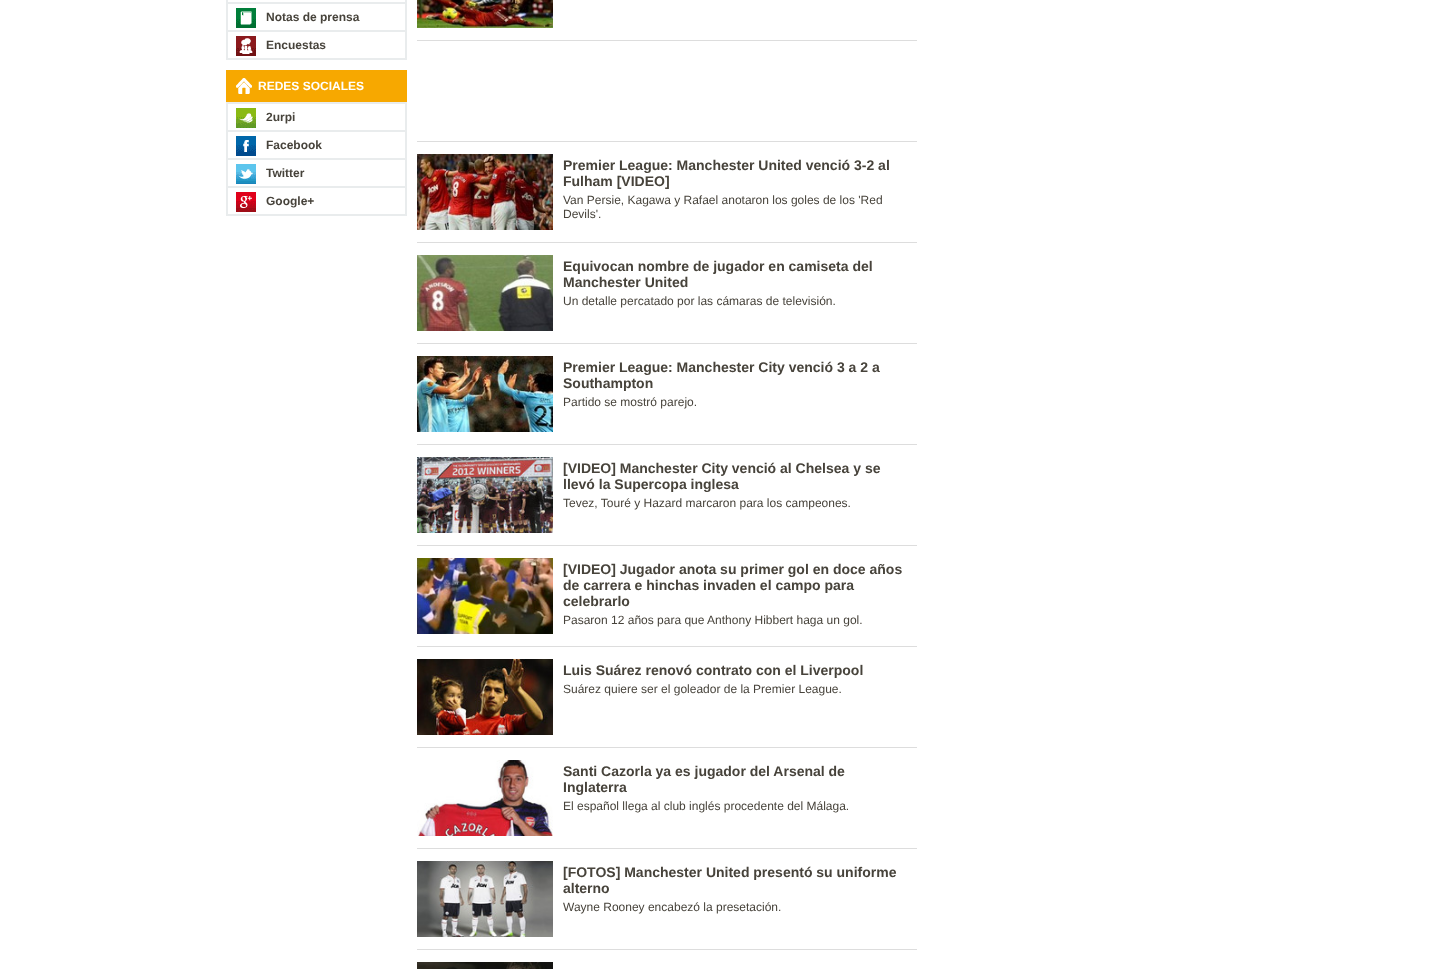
<svg xmlns="http://www.w3.org/2000/svg" width="1452" height="969">
<style>
.a{font:bold 12px Liberation Sans;fill:#47433b}
.b{font:bold 12px Liberation Sans;fill:#fff}
.c{font:bold 14px Liberation Sans;fill:#47433b}
.d{font:12px Liberation Sans;fill:#47433b}
</style>
<rect width="100%" height="100%" fill="#fff"/>
<path fill="#e9eced" d="M405 0h2v60H405z"/>
<path fill="#e9eced" d="M226 0h2v60H226z"/>
<path fill="#e9eced" d="M228 2h177v2H228z"/>
<image href="1.png" x="236" y="8" width="20" height="20"/>
<path fill="#e9eced" d="M228 30h177v2H228z"/>
<image href="2.png" x="236" y="36" width="20" height="20"/>
<path fill="#e9eced" d="M228 58h177v2H228z"/>
<path fill="#f7a800" d="M226 70h181v32H226z"/>
<image href="3.png" x="236" y="78" width="16" height="16"/>
<path fill="#e9eced" d="M226 102h181v2H226z"/>
<path fill="#e9eced" d="M405 102h2v114H405z"/>
<path fill="#e9eced" d="M226 102h2v114H226z"/>
<image href="4.png" x="236" y="108" width="20" height="20"/>
<path fill="#e9eced" d="M228 130h177v2H228z"/>
<image href="5.png" x="236" y="136" width="20" height="20"/>
<path fill="#e9eced" d="M228 158h177v2H228z"/>
<image href="6.png" x="236" y="164" width="20" height="20"/>
<path fill="#e9eced" d="M228 186h177v2H228z"/>
<image href="7.png" x="236" y="192" width="20" height="20"/>
<path fill="#e9eced" d="M228 214h177v2H228z"/>
<path fill="#ddd" d="M417 40h500v1H417z"/>
<image href="8.png" x="417" y="0" width="136" height="28"/>
<path fill="#ddd" d="M417 141h500v1H417z"/>
<path fill="#ddd" d="M417 242h500v1H417z"/>
<image href="9.png" x="417" y="154" width="136" height="76"/>
<path fill="#ddd" d="M417 343h500v1H417z"/>
<image href="10.png" x="417" y="255" width="136" height="76"/>
<path fill="#ddd" d="M417 444h500v1H417z"/>
<image href="11.png" x="417" y="356" width="136" height="76"/>
<path fill="#ddd" d="M417 545h500v1H417z"/>
<image href="12.png" x="417" y="457" width="136" height="76"/>
<path fill="#ddd" d="M417 646h500v1H417z"/>
<image href="13.png" x="417" y="558" width="136" height="76"/>
<path fill="#ddd" d="M417 747h500v1H417z"/>
<image href="14.png" x="417" y="659" width="136" height="76"/>
<path fill="#ddd" d="M417 848h500v1H417z"/>
<image href="15.png" x="417" y="760" width="136" height="76"/>
<path fill="#ddd" d="M417 949h500v1H417z"/>
<image href="16.png" x="417" y="861" width="136" height="76"/>
<image href="17.png" x="417" y="962" width="136" height="7"/>
<text class="a" x="266" y="21">Notas de prensa</text>
<text class="a" x="266" y="49">Encuestas</text>
<text class="b" x="258" y="90">REDES SOCIALES</text>
<text class="a" x="266" y="121">2urpi</text>
<text class="a" x="266" y="149">Facebook</text>
<text class="a" x="266" y="177">Twitter</text>
<text class="a" x="266" y="205">Google+</text>
<text class="c" x="563" y="170">Premier League: Manchester United venció 3-2 al</text>
<text class="c" x="563" y="186">Fulham [VIDEO]</text>
<text class="d" x="563" y="204">Van Persie, Kagawa y Rafael anotaron los goles de los 'Red</text>
<text class="d" x="563" y="218">Devils'.</text>
<text class="c" x="563" y="271">Equivocan nombre de jugador en camiseta del</text>
<text class="c" x="563" y="287">Manchester United</text>
<text class="d" x="563" y="305">Un detalle percatado por las cámaras de televisión.</text>
<text class="c" x="563" y="372">Premier League: Manchester City venció 3 a 2 a</text>
<text class="c" x="563" y="388">Southampton</text>
<text class="d" x="563" y="406">Partido se mostró parejo.</text>
<text class="c" x="563" y="473">[VIDEO] Manchester City venció al Chelsea y se</text>
<text class="c" x="563" y="489">llevó la Supercopa inglesa</text>
<text class="d" x="563" y="507">Tevez, Touré y Hazard marcaron para los campeones.</text>
<text class="c" x="563" y="574">[VIDEO] Jugador anota su primer gol en doce años</text>
<text class="c" x="563" y="590">de carrera e hinchas invaden el campo para</text>
<text class="c" x="563" y="606">celebrarlo</text>
<text class="d" x="563" y="624">Pasaron 12 años para que Anthony Hibbert haga un gol.</text>
<text class="c" x="563" y="675">Luis Suárez renovó contrato con el Liverpool</text>
<text class="d" x="563" y="693">Suárez quiere ser el goleador de la Premier League.</text>
<text class="c" x="563" y="776">Santi Cazorla ya es jugador del Arsenal de</text>
<text class="c" x="563" y="792">Inglaterra</text>
<text class="d" x="563" y="810">El español llega al club inglés procedente del Málaga.</text>
<text class="c" x="563" y="877">[FOTOS] Manchester United presentó su uniforme</text>
<text class="c" x="563" y="893">alterno</text>
<text class="d" x="563" y="911">Wayne Rooney encabezó la presetación.</text>
</svg>
